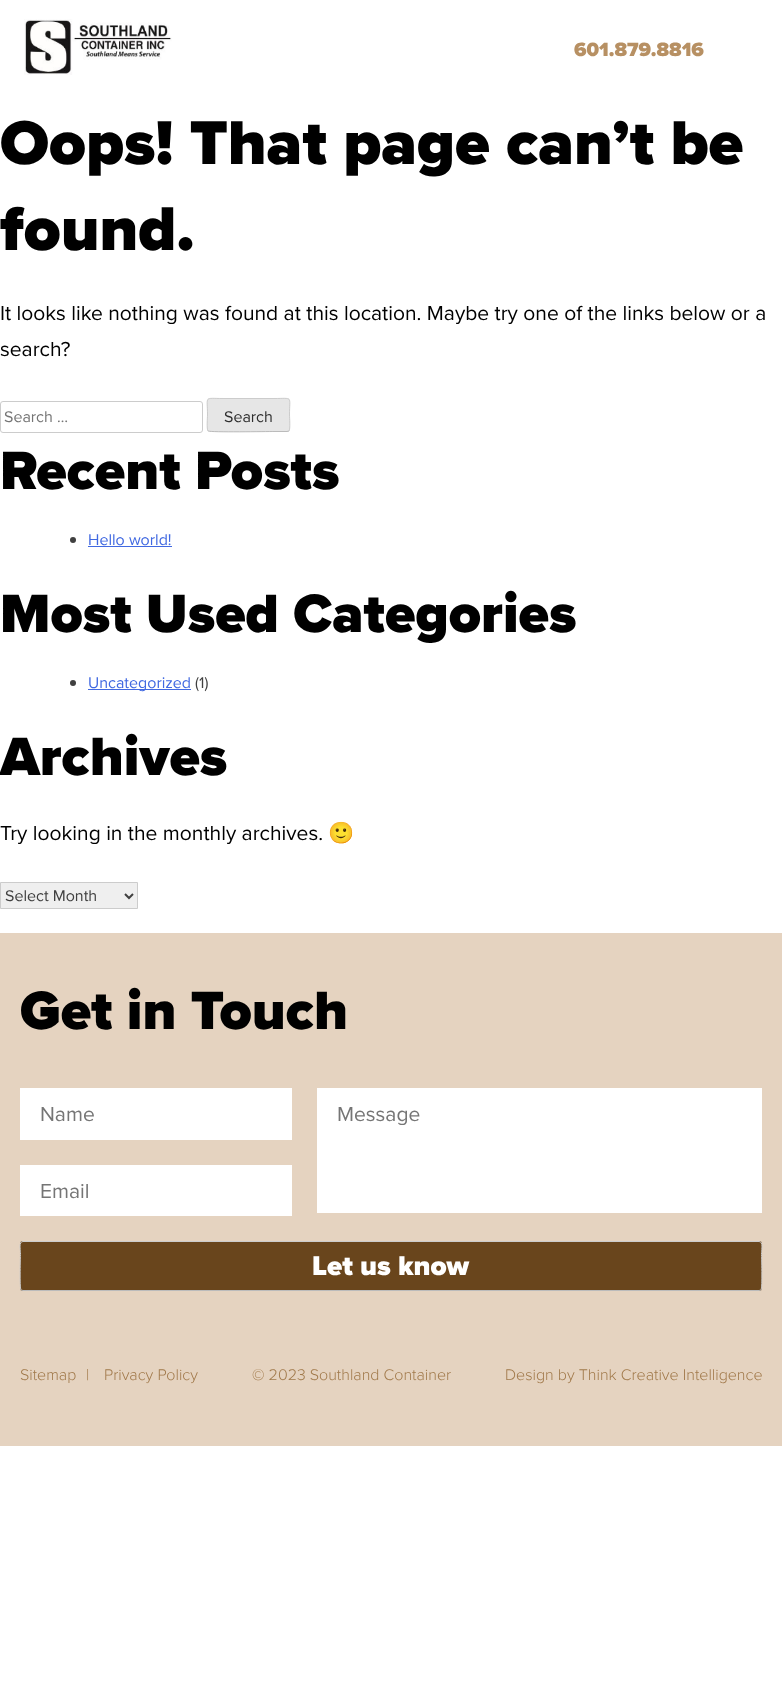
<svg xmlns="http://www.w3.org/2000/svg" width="782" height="1683">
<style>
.a{font:900 20px Proxima Nova;fill:#b79063}
.b{font:900 64px Proxima Nova;fill:#000}
.c{font:21px Proxima Nova;fill:#000}
.d{font:16px Proxima Nova;fill:#757575}
.e{font:16px Proxima Nova;fill:#2e2e2e}
.f{font:900 56px Proxima Nova;fill:#000}
.g{font:16px Proxima Nova;fill:#4169e1}
.h{font:16px Proxima Nova;fill:#404040}
.i{font:21px Noto Color Emoji;fill:#000}
.j{font:21px Proxima Nova;fill:#757575}
.k{font:900 28px Proxima Nova;fill:#fff}
.l{font:300 16px Proxima Nova;fill:#a1794a}
</style>
<rect width="100%" height="100%" fill="#fff"/>
<image href="1.png" x="24" y="19" width="148" height="56"/>
<rect fill="none" stroke="#ccc" x="0.5" y="401.5" width="202" height="31" rx="2.5"/>
<rect fill="#e6e6e6" x="207" y="398" width="83" height="34" rx="3"/>
<path fill="none" stroke="#bbb" d="M289 431l-2 .5h-13c-7 0-63.5 1-65.5-.5h-.5"/>
<path fill="none" stroke="#ccc" d="M208 431c-1.5-2-.5-13.5-.5-16c0-19.5-4-16.5 15.5-16.5h51c19.5 0 15.5-3 15.5 16.5c0 2.5 1 14-.5 16"/>
<circle fill="#404040" cx="73" cy="540" r="3"/>
<path fill="#4169e1" d="M88 546h84v1H88z"/>
<circle fill="#404040" cx="73" cy="683" r="3"/>
<path fill="#4169e1" d="M88 689h103v1H88z"/>
<path fill="#efefef" stroke="#ccc" d="M0.5 882.5h137v26H0.5z"/>
<path fill="none" stroke="#404040" stroke-width="2" d="M125 894l4 4l4-4"/>
<path fill="#e5d3c0" d="M0 933h782v513H0z"/>
<path fill="#fff" d="M20 1088h272v52H20z"/>
<path fill="#fff" d="M20 1165h272v51H20z"/>
<path fill="#fff" d="M317 1088h445v125H317z"/>
<rect fill="#69451c" x="20" y="1241" width="742" height="50" rx="3"/>
<path fill="none" stroke="#bbb" d="M761 1290l-2 .5h-736l-2-.5"/>
<path fill="none" stroke="#ccc" d="M21 1290c-1.5-2-.5-34-.5-38.5c0-1-2-10 2.5-10h736c4.5 0 2.5 9 2.5 10c0 4.5 1 36.5-.5 38.5"/>
<text class="a" x="574" y="56">601.879.8816</text>
<text class="b" x="0" y="164">Oops! That page can’t be</text>
<text class="b" x="0" y="250">found.</text>
<text class="c" x="0" y="320">It looks like nothing was found at this location. Maybe try one of the links below or a</text>
<text class="c" x="0" y="356">search?</text>
<text class="d" x="4" y="422">Search …</text>
<text class="e" x="224" y="422">Search</text>
<text class="f" x="0" y="489">Recent Posts</text>
<text class="g" x="88" y="545">Hello world!</text>
<text class="f" x="0" y="632">Most Used Categories</text>
<text class="g" x="88" y="688">Uncategorized</text>
<text class="h" x="195" y="688">(1)</text>
<text class="f" x="0" y="775">Archives</text>
<text class="c" x="0" y="840">Try looking in the monthly archives.</text>
<text class="i" x="328" y="840">🙂</text>
<text class="h" x="5" y="901">Select Month</text>
<text class="f" x="20" y="1029">Get in Touch</text>
<text class="j" x="40" y="1121">Name</text>
<text class="j" x="40" y="1198">Email</text>
<text class="j" x="337" y="1121">Message</text>
<text class="k" x="312" y="1275">Let us know</text>
<text class="l" x="20" y="1380">Sitemap</text>
<text class="l" x="86" y="1380">|</text>
<text class="l" x="104" y="1380">Privacy Policy</text>
<text class="l" x="252" y="1380">© 2023 Southland Container</text>
<text class="l" x="505" y="1380">Design by Think Creative Intelligence</text>
</svg>
